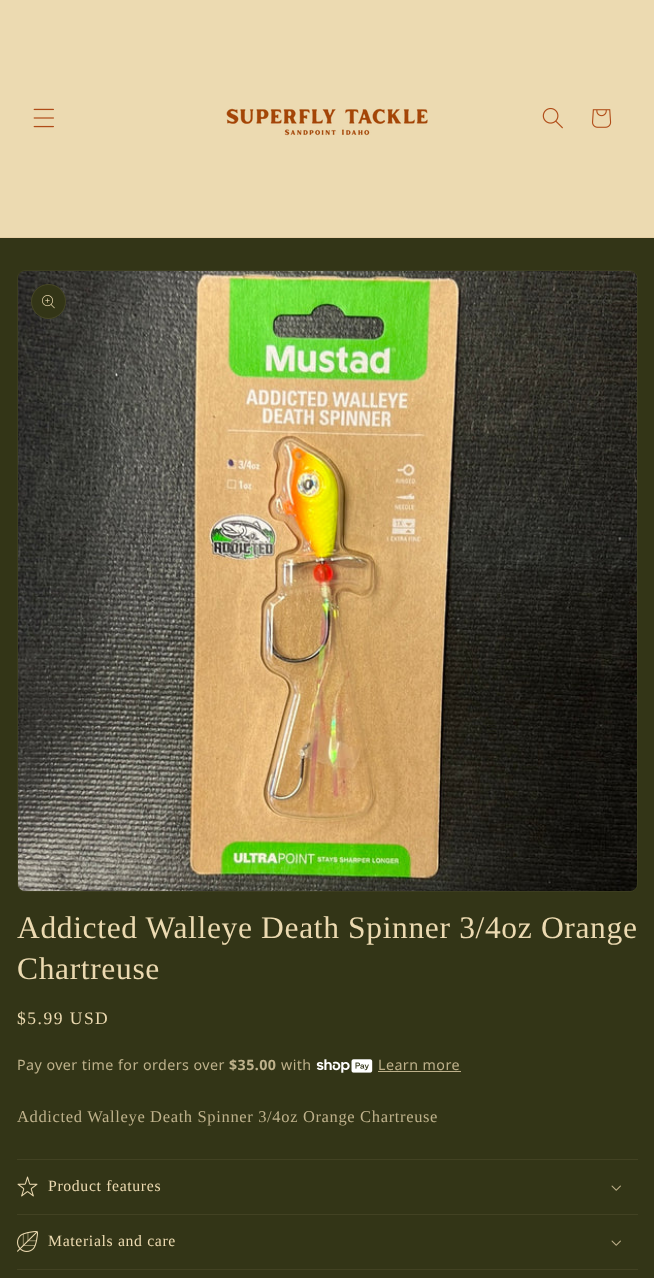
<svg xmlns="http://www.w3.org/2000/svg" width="654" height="1278">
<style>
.a{font:31.5px Liberation Serif;letter-spacing:0.65px;fill:#ecdab1}
.b{font:17.5px Liberation Serif;letter-spacing:1.5px;fill:#ecdab1}
.c{font:14.25px Noto Sans;letter-spacing:0.45px;fill:#beb18b}
.d{font:bold 14.25px Noto Sans;letter-spacing:0.45px;fill:#beb18b}
.e{font:16.5px Liberation Serif;letter-spacing:0.65px;fill:#beb18b}
.f{font:15.75px Liberation Serif;letter-spacing:0.65px;fill:#ecdab1}
</style>
<rect width="100%" height="100%" fill="#333517"/>
<path fill="#ecdab1" d="M0 0h654v237H0z"/>
<path fill="#e7cfa5" d="M0 237h654v1H0z"/>
<image href="1.png" x="33" y="108" width="21" height="20"/>
<image href="2.png" x="226" y="108" width="202" height="28"/>
<image href="3.png" x="542" y="107" width="21" height="22"/>
<image href="4.png" x="592" y="109" width="20" height="19"/>
<rect fill="none" stroke="#3c3d1f" x="17.5" y="270.5" width="620" height="621" rx="7.5"/>
<image href="5.png" x="18" y="271" width="619" height="620"/>
<circle fill="#333517" cx="48.5" cy="301.5" r="17.5"/>
<circle fill="none" stroke="#ecdab11a" cx="48.5" cy="301.5" r="17"/>
<image href="6.png" x="42" y="295" width="13" height="14"/>
<image href="7.png" x="316" y="1059" width="57" height="14"/>
<path fill="#beb18b" d="M378 1071h83v1H378z"/>
<path fill="#424223" d="M17 1159h621v1H17z"/>
<path fill="#424223" d="M17 1214h621v1H17z"/>
<image href="8.png" x="17" y="1176" width="21" height="21"/>
<image href="9.png" x="611" y="1185" width="10" height="6"/>
<path fill="#424223" d="M17 1269h621v1H17z"/>
<image href="10.png" x="17" y="1231" width="21" height="21"/>
<image href="9.png" x="611" y="1240" width="10" height="6"/>
<text class="a" x="17" y="938">Addicted Walleye Death Spinner 3/4oz Orange</text>
<text class="a" x="17" y="979">Chartreuse</text>
<text class="b" x="17" y="1024">$5.99 USD</text>
<text class="c" x="17" y="1070">Pay over time for orders over</text>
<text class="d" x="229" y="1070">$35.00</text>
<text class="c" x="281" y="1070">with</text>
<text class="c" x="378" y="1070">Learn more</text>
<text class="e" x="17" y="1122">Addicted Walleye Death Spinner 3/4oz Orange Chartreuse</text>
<text class="f" x="48" y="1191">Product features</text>
<text class="f" x="48" y="1246">Materials and care</text>
</svg>
